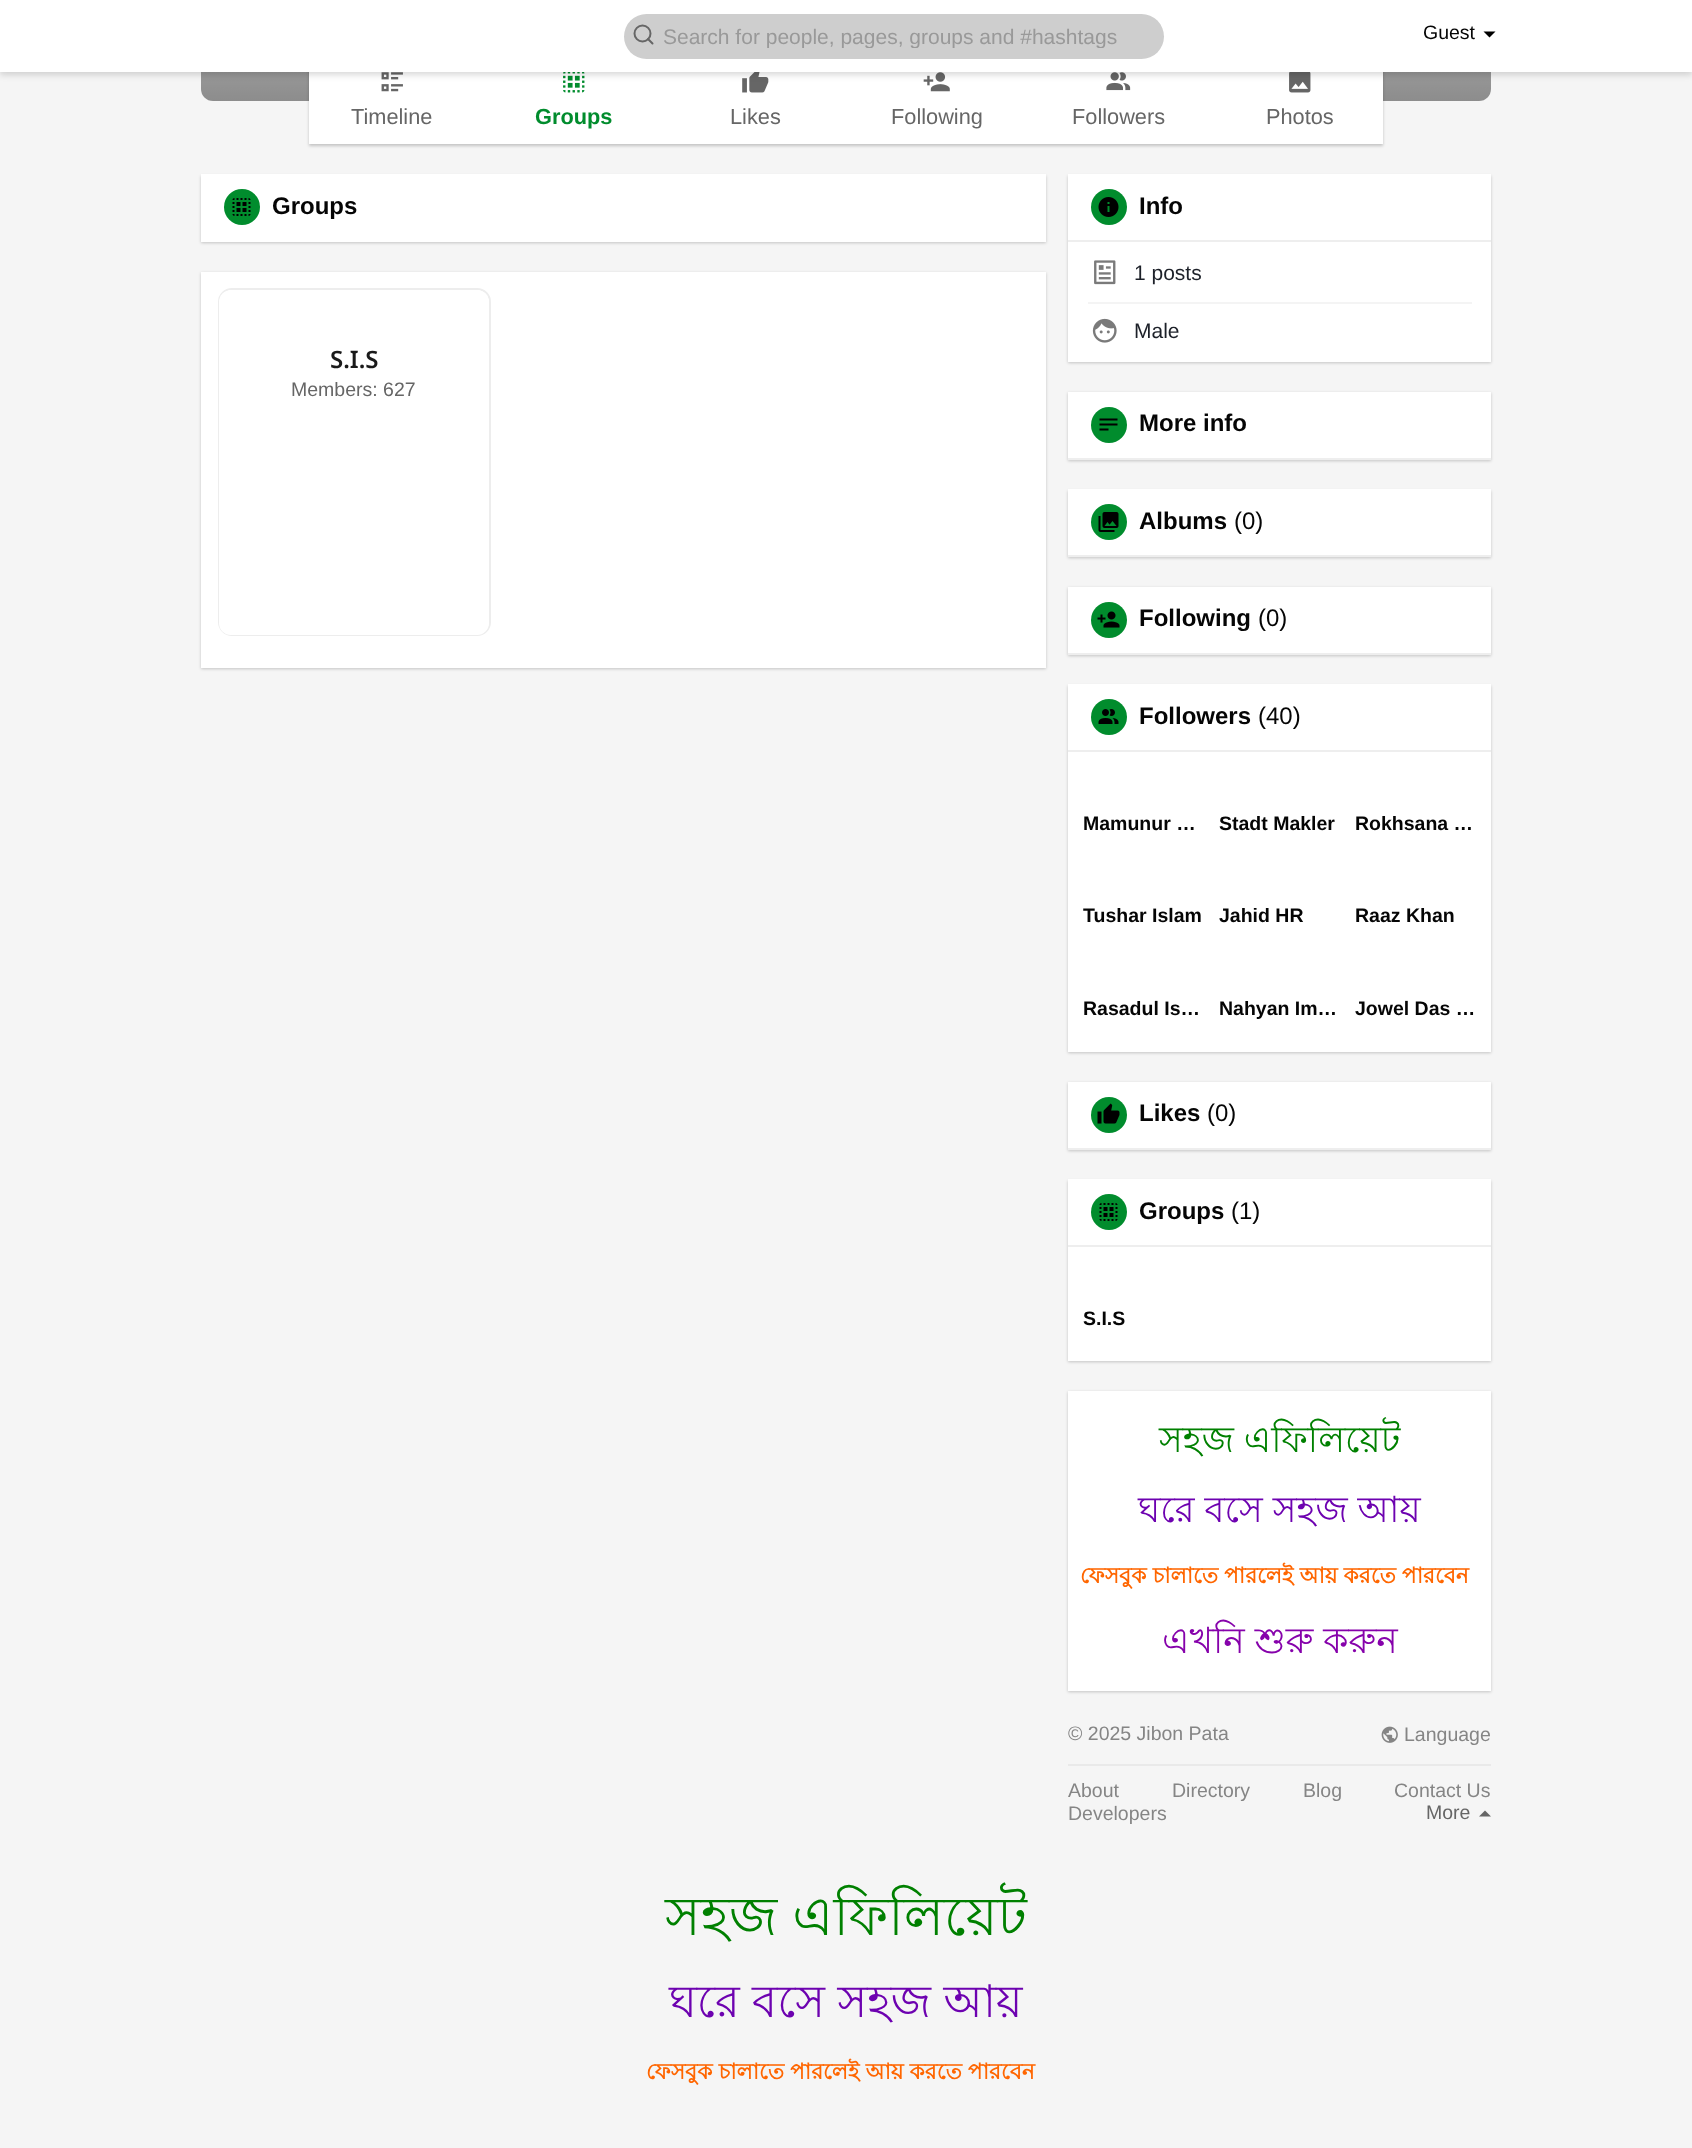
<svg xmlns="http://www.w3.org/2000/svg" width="1692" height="2148">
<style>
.a{font:21px Liberation Sans;fill:#999}
.b{font:19.5px Liberation Sans;fill:#050505}
.c{font:21.75px Liberation Sans;fill:#666}
.d{font:bold 21.75px Liberation Sans;fill:#018c2d}
.e{font:bold 24px Liberation Sans;fill:#050505}
.f{font:600 24px Noto Sans;fill:#1a1a1a}
.g{font:19.5px Liberation Sans;fill:#666}
.h{font:21px Liberation Sans;fill:#1d2129}
.i{font:24px Liberation Sans;fill:#050505}
.j{font:bold 19.5px Liberation Sans;fill:#050505}
.k{font:36px Lohit Bengali;fill:#008000}
.l{font:36px Lohit Bengali;fill:#6d02b0}
.m{font:bold 21.75px Lohit Bengali;fill:#f60}
.n{font:36px Lohit Bengali;fill:#8602ab}
.o{font:19.5px Liberation Sans;fill:#858585}
.p{font:54px Lohit Bengali;fill:#008000}
.q{font:45px Lohit Bengali;fill:#6d02b0}
</style>
<defs>
<linearGradient id="g1" gradientUnits="userSpaceOnUse" x1="846" y1="-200" x2="846" y2="101"><stop offset="0" stop-color="#000" stop-opacity="0"/><stop offset="1" stop-color="#000" stop-opacity="0.45"/></linearGradient>
<clipPath id="clip1"><path d="M663 24h482v24H663z"/></clipPath>
</defs>
<rect width="100%" height="100%" fill="#f5f5f5"/>
<path fill="#fff" d="M201 68h1290v21c0 6.5-5.5 12-12 12h-1266c-6.5 0-12-5.5-12-12z"/>
<rect fill="url(#g1)" x="201" y="-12" width="1290" height="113" rx="12"/>
<path fill="#00000033" filter="blur(1.5px)" d="M309 53h1074v93H309z"/>
<path fill="#fff" d="M309 72h1074v72H309z"/>
<image href="1.png" x="381" y="72" width="22" height="20"/>
<image href="2.png" x="563" y="72" width="22" height="21"/>
<image href="3.png" x="742" y="72" width="27" height="21"/>
<image href="4.png" x="923" y="72" width="27" height="20"/>
<image href="5.png" x="1106" y="72" width="25" height="19"/>
<image href="6.png" x="1289" y="72" width="22" height="21"/>
<path fill="#00000026" filter="blur(3px)" d="M0 3h1692v72H0z"/>
<path fill="#fff" d="M0 0h1692v72H0z"/>
<rect fill="#cecece" x="624" y="14" width="540" height="45" rx="22.5"/>
<circle fill="none" stroke="#666" stroke-width="2" cx="642.5" cy="33.5" r="8"/>
<path fill="none" stroke="#666" stroke-width="2" stroke-linecap="round" stroke-linejoin="round" d="M652.5 43.5l-4.5-4.5"/>
<path fill="#000" d="M1483.5 31.5h12l-6 6z"/>
<path fill="#00000033" filter="blur(1.5px)" d="M201 176h845v67H201z"/>
<path fill="#fff" d="M201 174h845v68H201z"/>
<circle fill="#018c2d" cx="242" cy="207" r="18"/>
<image href="7.png" x="232" y="198" width="19" height="18"/>
<path fill="#00000033" filter="blur(1.5px)" d="M201 273h845v396H201z"/>
<path fill="#fff" d="M201 272h845v396H201z"/>
<rect fill="none" stroke="#ededed" stroke-width="2" x="219" y="289" width="271" height="346" rx="13"/>
<rect fill="#fff" x="219" y="290" width="270" height="345" rx="12"/>
<path fill="#00000033" filter="blur(1.5px)" d="M1068 176h423v187H1068z"/>
<path fill="#fff" d="M1068 174h423v188H1068z"/>
<path fill="#eee" d="M1068 240h423v2H1068z"/>
<circle fill="#018c2d" cx="1109" cy="207" r="18"/>
<image href="8.png" x="1098" y="197" width="21" height="20"/>
<image href="9.png" x="1094" y="260" width="22" height="25"/>
<path fill="#f4f4f4" d="M1088 302h384v2H1088z"/>
<image href="10.png" x="1092" y="318" width="25" height="25"/>
<path fill="#00000033" filter="blur(1.5px)" d="M1068 393h423v68H1068z"/>
<path fill="#fff" d="M1068 392h423v66H1068z"/>
<path fill="#eee" d="M1068 458h423v2H1068z"/>
<circle fill="#018c2d" cx="1109" cy="425" r="18"/>
<image href="11.png" x="1099" y="418" width="19" height="13"/>
<path fill="#00000033" filter="blur(1.5px)" d="M1068 491h423v67H1068z"/>
<path fill="#fff" d="M1068 489h423v66H1068z"/>
<path fill="#eee" d="M1068 555h423v2H1068z"/>
<circle fill="#018c2d" cx="1109" cy="522" r="18"/>
<image href="12.png" x="1098" y="512" width="21" height="20"/>
<path fill="#00000033" filter="blur(1.5px)" d="M1068 588h423v68H1068z"/>
<path fill="#fff" d="M1068 587h423v66H1068z"/>
<path fill="#eee" d="M1068 653h423v2H1068z"/>
<circle fill="#018c2d" cx="1109" cy="620" r="18"/>
<image href="13.png" x="1097" y="611" width="23" height="17"/>
<path fill="#00000033" filter="blur(1.5px)" d="M1068 686h423v367H1068z"/>
<path fill="#fff" d="M1068 684h423v368H1068z"/>
<path fill="#eee" d="M1068 750h423v2H1068z"/>
<circle fill="#018c2d" cx="1109" cy="717" r="18"/>
<image href="14.png" x="1098" y="709" width="21" height="15"/>
<path fill="#00000033" filter="blur(1.5px)" d="M1068 1083h423v68H1068z"/>
<path fill="#fff" d="M1068 1082h423v66H1068z"/>
<path fill="#eee" d="M1068 1148h423v2H1068z"/>
<circle fill="#018c2d" cx="1109" cy="1115" r="18"/>
<image href="15.png" x="1097" y="1103" width="23" height="21"/>
<path fill="#00000033" filter="blur(1.5px)" d="M1068 1181h423v181H1068z"/>
<path fill="#fff" d="M1068 1179h423v182H1068z"/>
<path fill="#eee" d="M1068 1245h423v2H1068z"/>
<circle fill="#018c2d" cx="1109" cy="1212" r="18"/>
<image href="7.png" x="1099" y="1203" width="19" height="18"/>
<path fill="#00000033" filter="blur(1.5px)" d="M1068 1392h423v300H1068z"/>
<path fill="#fff" d="M1068 1391h423v300H1068z"/>
<image href="16.png" x="1381" y="1726" width="17" height="17"/>
<path fill="#e9e9e9" d="M1068 1764h423v2H1068z"/>
<path fill="#666" d="M1491 1816.5h-12l6-6z"/>
<g clip-path="url(#clip1)">
<text class="a" x="663" y="44">Search for people, pages, groups and #hashtags</text>
</g>
<text class="b" x="1423" y="39">Guest</text>
<text class="c" x="351" y="124">Timeline</text>
<text class="d" x="535" y="124">Groups</text>
<text class="c" x="730" y="124">Likes</text>
<text class="c" x="891" y="124">Following</text>
<text class="c" x="1072" y="124">Followers</text>
<text class="c" x="1266" y="124">Photos</text>
<text class="e" x="272" y="214">Groups</text>
<text class="f" x="330" y="368">S.I.S</text>
<text class="g" x="291" y="396">Members: 627</text>
<text class="e" x="1139" y="214">Info</text>
<text class="h" x="1134" y="280">1 posts</text>
<text class="h" x="1134" y="338">Male</text>
<text class="e" x="1139" y="431">More info</text>
<text class="e" x="1139" y="529">Albums</text>
<text class="i" x="1234" y="529">(0)</text>
<text class="e" x="1139" y="626">Following</text>
<text class="i" x="1258" y="626">(0)</text>
<text class="e" x="1139" y="724">Followers</text>
<text class="i" x="1258" y="724">(40)</text>
<text class="j" x="1083" y="830">Mamunur …</text>
<text class="j" x="1219" y="830">Stadt Makler</text>
<text class="j" x="1355" y="830">Rokhsana …</text>
<text class="j" x="1083" y="922">Tushar Islam</text>
<text class="j" x="1219" y="922">Jahid HR</text>
<text class="j" x="1355" y="922">Raaz Khan</text>
<text class="j" x="1083" y="1015">Rasadul Is…</text>
<text class="j" x="1219" y="1015">Nahyan Im…</text>
<text class="j" x="1355" y="1015">Jowel Das …</text>
<text class="e" x="1139" y="1121">Likes</text>
<text class="i" x="1207" y="1121">(0)</text>
<text class="e" x="1139" y="1219">Groups</text>
<text class="i" x="1231" y="1219">(1)</text>
<text class="j" x="1083" y="1325">S.I.S</text>
<text class="k" x="1159" y="1452">সহজ এফিলিয়েট</text>
<text class="l" x="1138" y="1522">ঘরে বসে সহজ আয়</text>
<text class="m" x="1080" y="1583">ফেসবুক চালাতে পারলেই আয় করতে পারবেন</text>
<text class="n" x="1162" y="1653">এখনি শুরু করুন</text>
<text class="o" x="1068" y="1740">© 2025 Jibon Pata</text>
<text class="o" x="1404" y="1741">Language</text>
<text class="o" x="1068" y="1797">About</text>
<text class="o" x="1172" y="1797">Directory</text>
<text class="o" x="1303" y="1797">Blog</text>
<text class="o" x="1394" y="1797">Contact Us</text>
<text class="o" x="1068" y="1820">Developers</text>
<text class="g" x="1426" y="1819">More</text>
<text class="p" x="665" y="1935">সহজ এফিলিয়েট</text>
<text class="q" x="669" y="2017">ঘরে বসে সহজ আয়</text>
<text class="m" x="646" y="2079">ফেসবুক চালাতে পারলেই আয় করতে পারবেন</text>
</svg>
